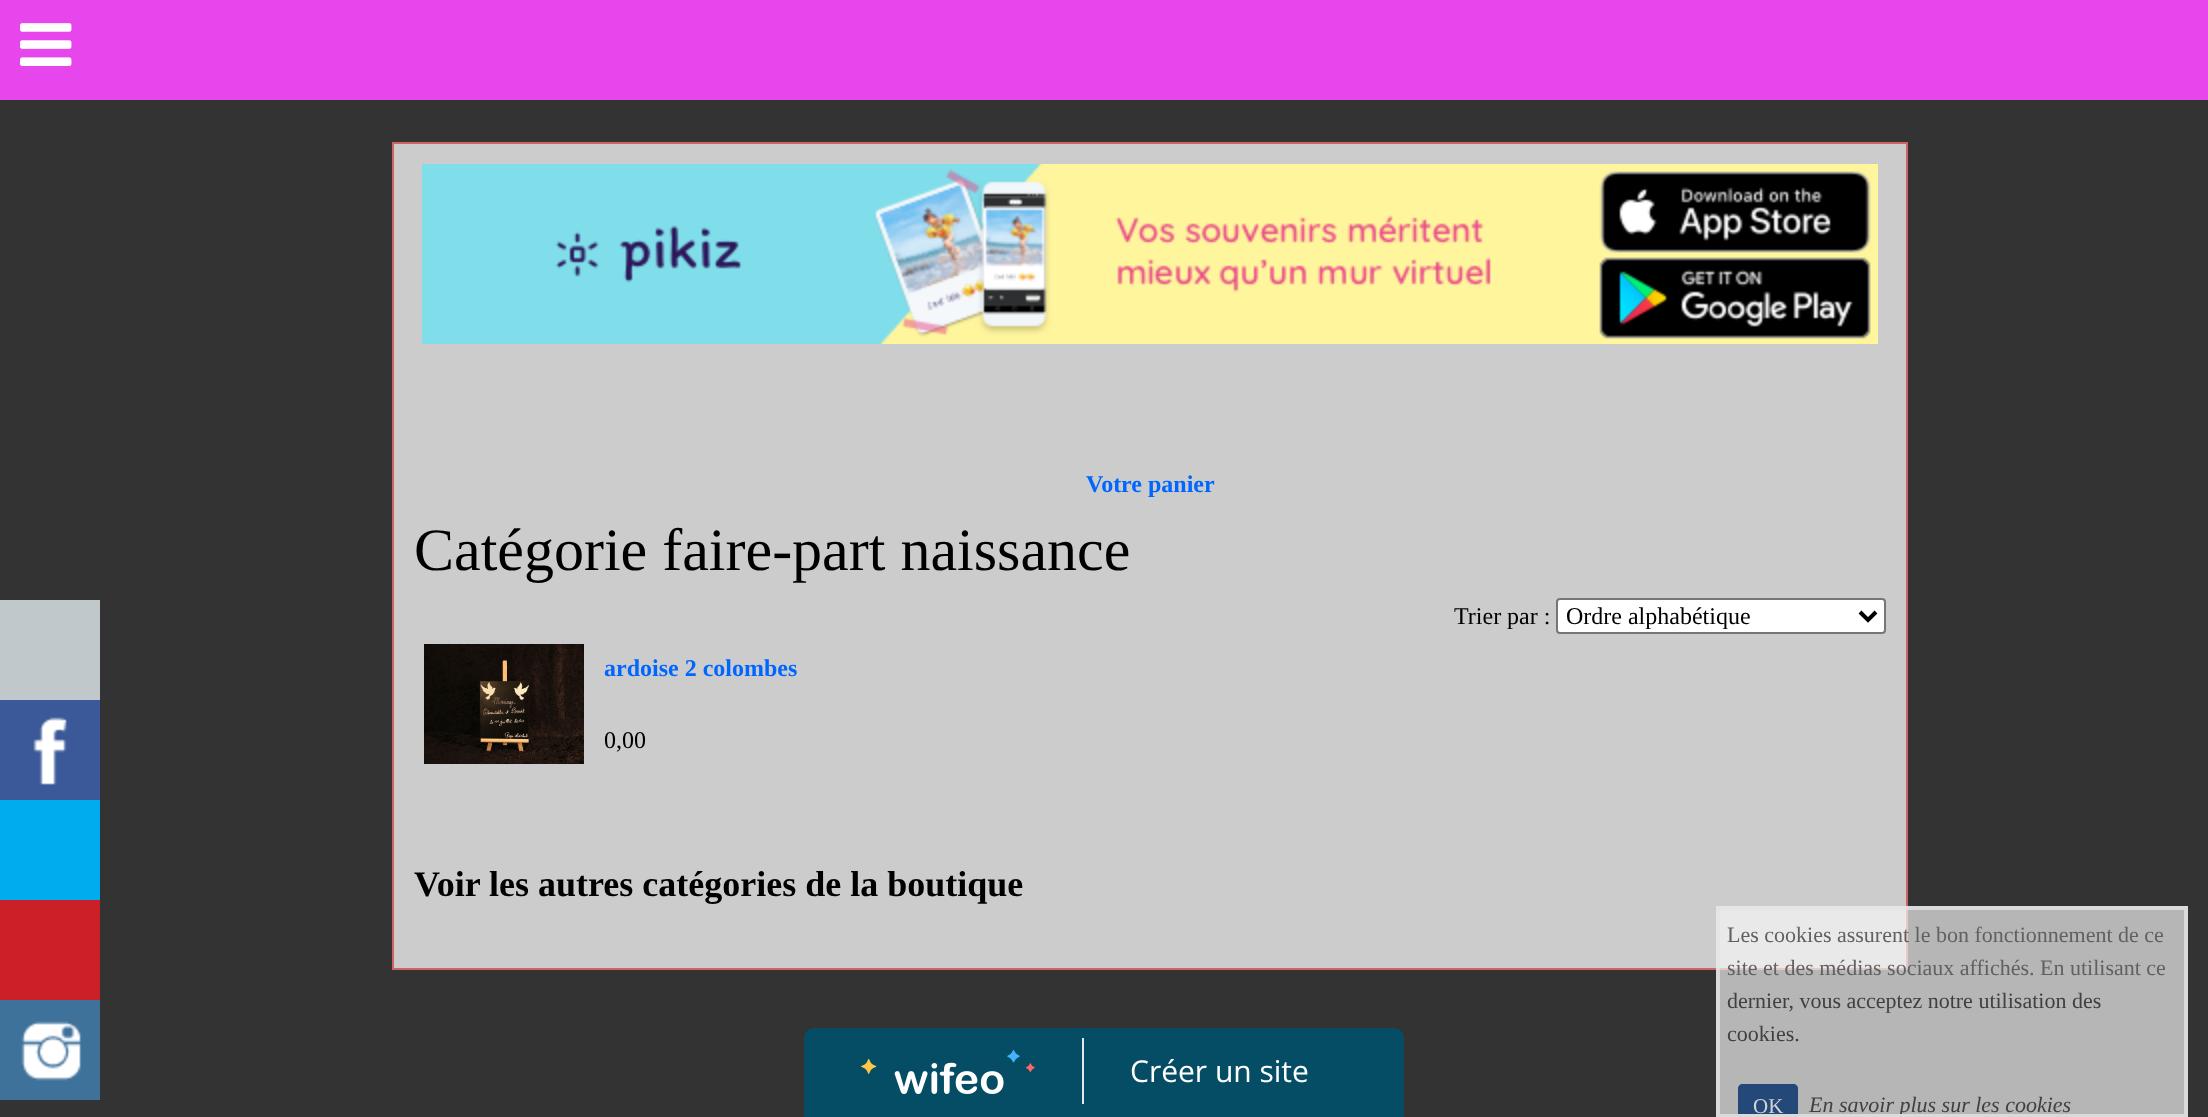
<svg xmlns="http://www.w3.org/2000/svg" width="2208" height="1117">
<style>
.a{font:bold 24px Liberation Serif;fill:#06f}
.b{font:60px Liberation Serif;fill:#000}
.c{font:24px Liberation Serif;fill:#000}
.d{font:bold 36px Liberation Serif;fill:#000}
.e{font:22px Liberation Serif;fill:#616161}
.f{font:22px Liberation Serif;fill:#404040}
.g{font:21px Liberation Serif;fill:#d4d4d4}
.h{font:italic 22px Liberation Serif;fill:#404040}
.i{font:30px Open Sans;fill:#fff}
</style>
<defs>
<clipPath id="clip1"><path d="M1720 910h464v204H1720z"/></clipPath>
</defs>
<rect width="100%" height="100%" fill="#333"/>
<path fill="#c0c8cc" d="M0 600h100v100H0z"/>
<path fill="#3b5998" d="M0 700h100v100H0z"/>
<image href="1.png" x="33" y="717" width="34" height="68"/>
<path fill="#00aced" d="M0 800h100v100H0z"/>
<path fill="#cb2027" d="M0 900h100v100H0z"/>
<path fill="#3f729b" d="M0 1000h100v100H0z"/>
<image href="2.png" x="21" y="1021" width="60" height="60"/>
<path fill="#ccc" stroke="#c66" stroke-width="2" d="M393 143h1514v826H393z"/>
<path fill="#e646eb" d="M0 0h2208v100H0z"/>
<image href="3.png" x="20" y="23" width="52" height="43"/>
<image href="4.png" x="422" y="164" width="1456" height="180"/>
<rect fill="#fff" stroke="#767676" stroke-width="2" x="1557" y="599" width="328" height="34" rx="3"/>
<path fill="none" stroke="#000" stroke-width="4" d="M1860 612l8 8l8-8"/>
<image href="5.png" x="424" y="644" width="160" height="120"/>
<path fill="#f7f7f7ab" d="M1716 906h472v211H1716z"/>
<path fill="none" stroke="#e3e3e3c9" stroke-width="4" d="M1718 908h468v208H1718z"/>
<path fill="#244979" d="M1743 1084h50c3 0 5 2 5 5v25h-60v-25c0-3 2-5 5-5z"/>
<g clip-path="url(#clip1)">
<rect fill="none" stroke="#244979" stroke-width="2" x="1739" y="1085" width="58" height="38" rx="4"/>
</g>
<path fill="#054d65" d="M814 1028h580c5.5 0 10 4.5 10 10v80h-600v-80c0-5.5 4.5-10 10-10z"/>
<path fill="#e7e7e7" d="M1082 1038h2v66H1082z"/>
<image href="6.png" x="861" y="1050" width="174" height="44"/>
<text class="a" x="1086" y="492">Votre panier</text>
<text class="b" x="414" y="570">Catégorie faire-part naissance</text>
<text class="c" x="1454" y="624">Trier par :</text>
<text class="c" x="1566" y="624">Ordre alphabétique</text>
<text class="a" x="604" y="676">ardoise 2 colombes</text>
<text class="c" x="604" y="748">0,00</text>
<text class="d" x="414" y="896">Voir les autres catégories de la boutique</text>
<text class="e" x="1727" y="942">Les cookies assurent le bon fonctionnement de ce</text>
<text class="e" x="1727" y="975">site et des médias sociaux affichés. En utilisant ce</text>
<text class="f" x="1727" y="1008">dernier, vous acceptez notre utilisation des</text>
<text class="f" x="1727" y="1041">cookies.</text>
<text class="g" x="1753" y="1113">OK</text>
<g clip-path="url(#clip1)">
<text class="h" x="1809" y="1112">En savoir plus sur les cookies</text>
</g>
<text class="i" x="1130" y="1082">Créer un site</text>
</svg>
